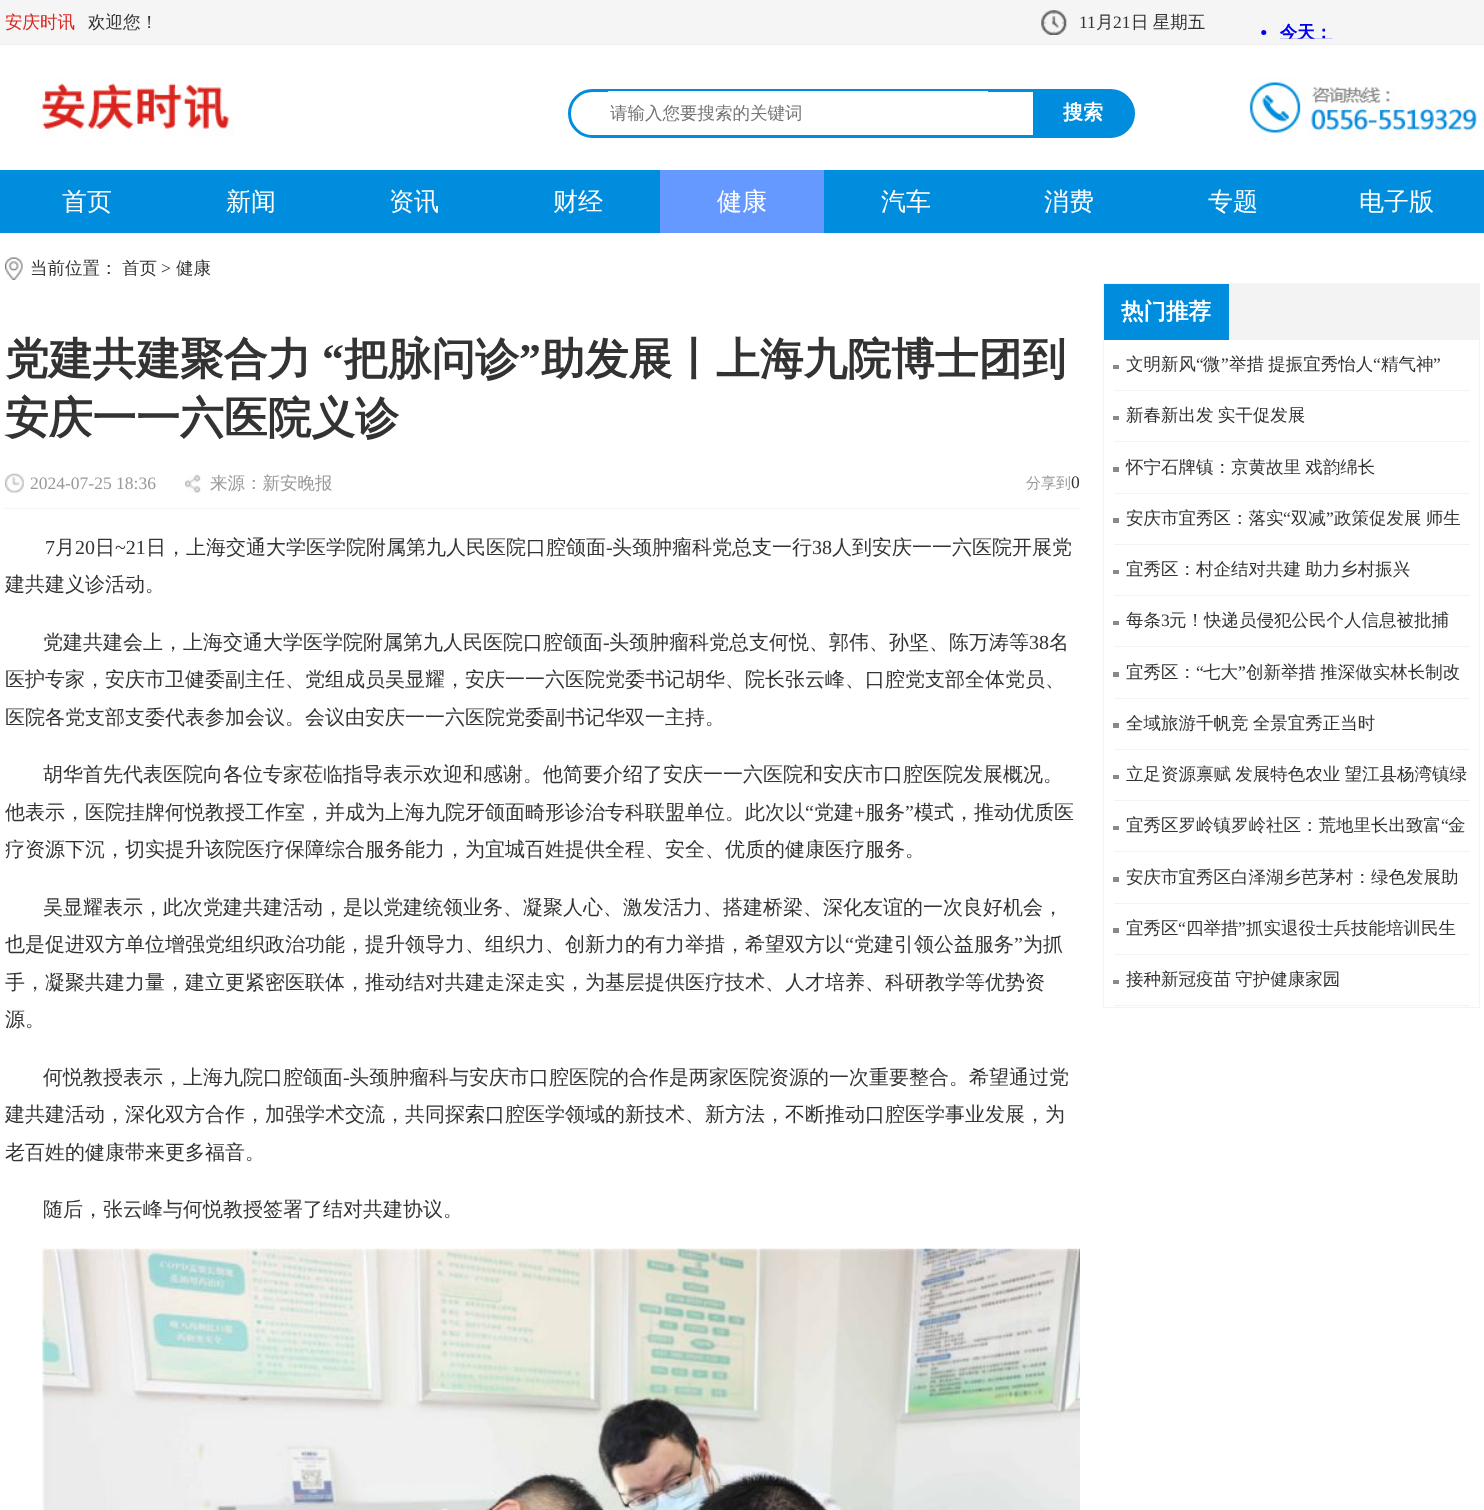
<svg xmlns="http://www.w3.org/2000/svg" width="1484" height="1510">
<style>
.a{font:500 17.5px WenQuanYi Zen Hei;fill:#db241e}
.b{font:500 17.5px WenQuanYi Zen Hei;fill:#333}
.c{font:17.5px Liberation Serif;fill:#333}
.d{font:500 17.5px WenQuanYi Zen Hei;fill:#757575}
.e{font:bold 20px WenQuanYi Zen Hei;fill:#fff}
.f{font:500 25px WenQuanYi Zen Hei;fill:#fff}
.g{font:bold 43.75px WenQuanYi Zen Hei;fill:#333}
.h{font:bold 43.75px Liberation Serif;fill:#333}
.i{font:17.5px Liberation Serif;fill:#999}
.j{font:500 17.5px WenQuanYi Zen Hei;fill:#999}
.k{font:500 15px WenQuanYi Zen Hei;fill:#999}
.l{font:20px Liberation Serif;fill:#333}
.m{font:500 20px WenQuanYi Zen Hei;fill:#333}
.n{font:bold 22.5px WenQuanYi Zen Hei;fill:#fff}
</style>
<rect width="100%" height="100%" fill="#fff"/>
<path fill="#f5f5f5" d="M0 0h1484v44H0z"/>
<path fill="#eee" d="M0 44h1484v1H0z"/>
<image href="1.png" x="1041" y="10" width="26" height="25"/>
<image href="2.png" x="1261" y="23" width="72" height="16"/>
<image href="3.png" x="1249" y="78" width="228" height="59"/>
<image href="4.png" x="35" y="78" width="200" height="58"/>
<rect fill="none" stroke="#008ddd" stroke-width="3" x="569.5" y="90.5" width="564" height="46" rx="23"/>
<path fill="#fff" d="M608 91h380v1H608z"/>
<path fill="#008ddd" d="M1033 91h81c10.5 0 19 8.5 19 19v6c0 10.5-8.5 19-19 19h-81z"/>
<path fill="#008ddd" d="M0 170h1484v63H0z"/>
<path fill="#69f" d="M660 170h164v63H660z"/>
<image href="5.png" x="5" y="257" width="18" height="23"/>
<path fill="#f3f3f3" d="M5 508h1075v1H5z"/>
<image href="6.png" x="5" y="473" width="19" height="20"/>
<image href="7.png" x="185" y="475" width="16" height="18"/>
<image href="8.png" x="42" y="1248" width="1038" height="262"/>
<path fill="none" stroke="#f3f3f3" d="M1103.5 283.5h376v724H1103.5z"/>
<path fill="#f3f3f3" d="M1229 284h250v56H1229z"/>
<path fill="#008ddd" d="M1104 284h125v56H1104z"/>
<path fill="#f3f3f3" d="M1114 390h356v1H1114z"/>
<path fill="#898989" d="M1113 365h6v4H1113z"/>
<path fill="#f3f3f3" d="M1114 441h356v1H1114z"/>
<path fill="#898989" d="M1113 416h6v4H1113z"/>
<path fill="#f3f3f3" d="M1114 493h356v1H1114z"/>
<path fill="#898989" d="M1113 467h6v5H1113z"/>
<path fill="#f3f3f3" d="M1114 544h356v1H1114z"/>
<path fill="#898989" d="M1113 518h6v5H1113z"/>
<path fill="#f3f3f3" d="M1114 595h356v1H1114z"/>
<path fill="#898989" d="M1113 570h6v4H1113z"/>
<path fill="#f3f3f3" d="M1114 646h356v1H1114z"/>
<path fill="#898989" d="M1113 621h6v4H1113z"/>
<path fill="#f3f3f3" d="M1114 698h356v1H1114z"/>
<path fill="#898989" d="M1113 672h6v5H1113z"/>
<path fill="#f3f3f3" d="M1114 749h356v1H1114z"/>
<path fill="#898989" d="M1113 723h6v5H1113z"/>
<path fill="#f3f3f3" d="M1114 800h356v1H1114z"/>
<path fill="#898989" d="M1113 775h6v4H1113z"/>
<path fill="#f3f3f3" d="M1114 851h356v1H1114z"/>
<path fill="#898989" d="M1113 826h6v4H1113z"/>
<path fill="#f3f3f3" d="M1114 903h356v1H1114z"/>
<path fill="#898989" d="M1113 877h6v5H1113z"/>
<path fill="#f3f3f3" d="M1114 954h356v1H1114z"/>
<path fill="#898989" d="M1113 928h6v5H1113z"/>
<path fill="#f3f3f3" d="M1114 1005h356v1H1114z"/>
<path fill="#898989" d="M1113 980h6v4H1113z"/>
<text class="a" x="5" y="28">安庆时讯</text>
<text class="b" x="88" y="28">欢迎您！</text>
<text class="c" x="1079" y="28">11</text>
<text class="b" x="1096" y="28">月</text>
<text class="c" x="1113" y="28">21</text>
<text class="b" x="1131" y="28" word-spacing="-1">日 星期五</text>
<text class="d" x="610" y="119">请输入您要搜索的关键词</text>
<text class="e" x="1063" y="119">搜索</text>
<text class="f" x="62" y="210">首页</text>
<text class="f" x="226" y="210">新闻</text>
<text class="f" x="389" y="210">资讯</text>
<text class="f" x="553" y="210">财经</text>
<text class="f" x="717" y="210">健康</text>
<text class="f" x="881" y="210">汽车</text>
<text class="f" x="1044" y="210">消费</text>
<text class="f" x="1208" y="210">专题</text>
<text class="f" x="1359" y="210">电子版</text>
<text class="b" x="30" y="274">当前位置：</text>
<text class="b" x="122" y="274">首页</text>
<text class="c" x="161" y="274">&gt;</text>
<text class="b" x="176" y="274">健康</text>
<text class="g" x="5" y="374">党建共建聚合力</text>
<text class="h" x="322" y="374">“</text>
<text class="g" x="344" y="374">把脉问诊</text>
<text class="h" x="519" y="374">”</text>
<text class="g" x="541" y="374">助发展丨上海九院博士团到</text>
<text class="g" x="5" y="433">安庆一一六医院义诊</text>
<text class="i" x="30" y="489">2024-07-25 18:36</text>
<text class="j" x="210" y="489">来源：新安晚报</text>
<text class="k" x="1026" y="488">分享到</text>
<text class="c" x="1071" y="488">0</text>
<text class="l" x="45" y="554">7</text>
<text class="m" x="55" y="554">月</text>
<text class="l" x="75" y="554">20</text>
<text class="m" x="95" y="554">日</text>
<text class="l" x="115" y="554">~21</text>
<text class="m" x="146" y="554">日，上海交通大学医学院附属第九人民医院口腔颌面</text>
<text class="l" x="606" y="554">-</text>
<text class="m" x="612" y="554">头颈肿瘤科党总支一行</text>
<text class="l" x="812" y="554">38</text>
<text class="m" x="832" y="554">人到安庆一一六医院开展党</text>
<text class="m" x="5" y="591">建共建义诊活动。</text>
<text class="m" x="43" y="649">党建共建会上，上海交通大学医学院附属第九人民医院口腔颌面</text>
<text class="l" x="603" y="649">-</text>
<text class="m" x="609" y="649">头颈肿瘤科党总支何悦、郭伟、孙坚、陈万涛等</text>
<text class="l" x="1029" y="649">38</text>
<text class="m" x="1049" y="649">名</text>
<text class="m" x="5" y="686">医护专家，安庆市卫健委副主任、党组成员吴显耀，安庆一一六医院党委书记胡华、院长张云峰、口腔党支部全体党员、</text>
<text class="m" x="5" y="724">医院各党支部支委代表参加会议。会议由安庆一一六医院党委副书记华双一主持。</text>
<text class="m" x="43" y="781">胡华首先代表医院向各位专家莅临指导表示欢迎和感谢。他简要介绍了安庆一一六医院和安庆市口腔医院发展概况。</text>
<text class="m" x="5" y="819">他表示，医院挂牌何悦教授工作室，并成为上海九院牙颌面畸形诊治专科联盟单位。此次以</text>
<text class="l" x="805" y="819">“</text>
<text class="m" x="814" y="819">党建</text>
<text class="l" x="854" y="819">+</text>
<text class="m" x="865" y="819">服务</text>
<text class="l" x="905" y="819">”</text>
<text class="m" x="914" y="819">模式，推动优质医</text>
<text class="m" x="5" y="856">疗资源下沉，切实提升该院医疗保障综合服务能力，为宜城百姓提供全程、安全、优质的健康医疗服务。</text>
<text class="m" x="43" y="914">吴显耀表示，此次党建共建活动，是以党建统领业务、凝聚人心、激发活力、搭建桥梁、深化友谊的一次良好机会，</text>
<text class="m" x="5" y="951">也是促进双方单位增强党组织政治功能，提升领导力、组织力、创新力的有力举措，希望双方以</text>
<text class="l" x="845" y="951">“</text>
<text class="m" x="854" y="951">党建引领公益服务</text>
<text class="l" x="1014" y="951">”</text>
<text class="m" x="1023" y="951">为抓</text>
<text class="m" x="5" y="989">手，凝聚共建力量，建立更紧密医联体，推动结对共建走深走实，为基层提供医疗技术、人才培养、科研教学等优势资</text>
<text class="m" x="5" y="1026">源。</text>
<text class="m" x="43" y="1084">何悦教授表示，上海九院口腔颌面</text>
<text class="l" x="343" y="1084">-</text>
<text class="m" x="349" y="1084">头颈肿瘤科与安庆市口腔医院的合作是两家医院资源的一次重要整合。希望通过党</text>
<text class="m" x="5" y="1121">建共建活动，深化双方合作，加强学术交流，共同探索口腔医学领域的新技术、新方法，不断推动口腔医学事业发展，为</text>
<text class="m" x="5" y="1159">老百姓的健康带来更多福音。</text>
<text class="m" x="43" y="1216">随后，张云峰与何悦教授签署了结对共建协议。</text>
<text class="n" x="1121" y="319">热门推荐</text>
<text class="b" x="1126" y="370">文明新风</text>
<text class="c" x="1196" y="370">“</text>
<text class="b" x="1203" y="370">微</text>
<text class="c" x="1221" y="370">”</text>
<text class="b" x="1229" y="370" word-spacing="-1">举措 提振宜秀怡人</text>
<text class="c" x="1373" y="370">“</text>
<text class="b" x="1381" y="370">精气神</text>
<text class="c" x="1433" y="370">”</text>
<text class="b" x="1126" y="421" word-spacing="-1">新春新出发 实干促发展</text>
<text class="b" x="1126" y="473" word-spacing="-1">怀宁石牌镇：京黄故里 戏韵绵长</text>
<text class="b" x="1126" y="524">安庆市宜秀区：落实</text>
<text class="c" x="1283" y="524">“</text>
<text class="b" x="1291" y="524">双减</text>
<text class="c" x="1326" y="524">”</text>
<text class="b" x="1334" y="524" word-spacing="-1">政策促发展 师生</text>
<text class="b" x="1126" y="575" word-spacing="-1">宜秀区：村企结对共建 助力乡村振兴</text>
<text class="b" x="1126" y="626">每条</text>
<text class="c" x="1161" y="626">3</text>
<text class="b" x="1169" y="626">元！快递员侵犯公民个人信息被批捕</text>
<text class="b" x="1126" y="678">宜秀区：</text>
<text class="c" x="1196" y="678">“</text>
<text class="b" x="1203" y="678">七大</text>
<text class="c" x="1238" y="678">”</text>
<text class="b" x="1246" y="678" word-spacing="-1">创新举措 推深做实林长制改</text>
<text class="b" x="1126" y="729" word-spacing="-1">全域旅游千帆竞 全景宜秀正当时</text>
<text class="b" x="1126" y="780" word-spacing="-1">立足资源禀赋 发展特色农业 望江县杨湾镇绿</text>
<text class="b" x="1126" y="831">宜秀区罗岭镇罗岭社区：荒地里长出致富</text>
<text class="c" x="1441" y="831">“</text>
<text class="b" x="1448" y="831">金</text>
<text class="b" x="1126" y="883">安庆市宜秀区白泽湖乡芭茅村：绿色发展助</text>
<text class="b" x="1126" y="934">宜秀区</text>
<text class="c" x="1178" y="934">“</text>
<text class="b" x="1186" y="934">四举措</text>
<text class="c" x="1238" y="934">”</text>
<text class="b" x="1246" y="934">抓实退役士兵技能培训民生</text>
<text class="b" x="1126" y="985" word-spacing="-1">接种新冠疫苗 守护健康家园</text>
</svg>
